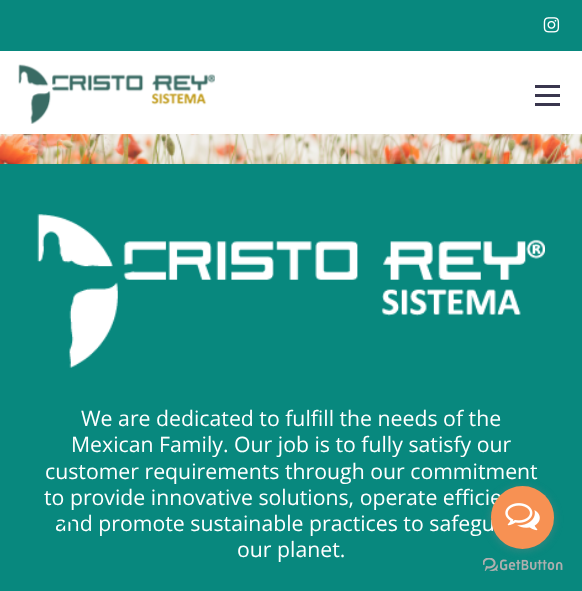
<svg xmlns="http://www.w3.org/2000/svg" width="582" height="591">
<style>
.a{font:21.25px Open Sans;fill:#fff}
</style>
<rect width="100%" height="100%" fill="#08887e"/>
<path fill="#fff" d="M0 51h582v83H0z"/>
<image href="1.png" x="543" y="17" width="17" height="16"/>
<image href="2.png" x="18" y="64" width="197" height="60"/>
<path fill="#39364e" d="M535 103h25v3H535z"/>
<path fill="#39364e" d="M535 85h25v3H535z"/>
<path fill="#39364e" d="M535 94h25v3H535z"/>
<image href="3.png" x="0" y="134" width="582" height="30"/>
<image href="4.png" x="37" y="214" width="508" height="154"/>
<path fill="#08887e12" d="M44 491h56v45H44z"/>
<image href="7.png" x="483" y="558" width="80" height="13"/>
<rect fill="#88888866" filter="blur(4.5px)" x="491" y="488" width="63" height="62" rx="31"/>
<text class="a" x="81" y="426">We are dedicated to fulfill the needs of the</text>
<text class="a" x="71" y="452">Mexican Family. Our job is to fully satisfy our</text>
<text class="a" x="45" y="479">customer requirements through our commitment</text>
<text class="a" x="44" y="505">to provide innovative solutions, operate efficie</text>
<text class="a" x="55" y="531">and promote sustainable practices to safegu</text>
<text class="a" x="237" y="557">our planet.</text>
<image href="5.png" x="61" y="519" width="16" height="8"/>
<circle fill="#f79153" cx="522.5" cy="517.5" r="31.5"/>
<image href="6.png" x="505" y="503" width="35" height="28"/>
</svg>
